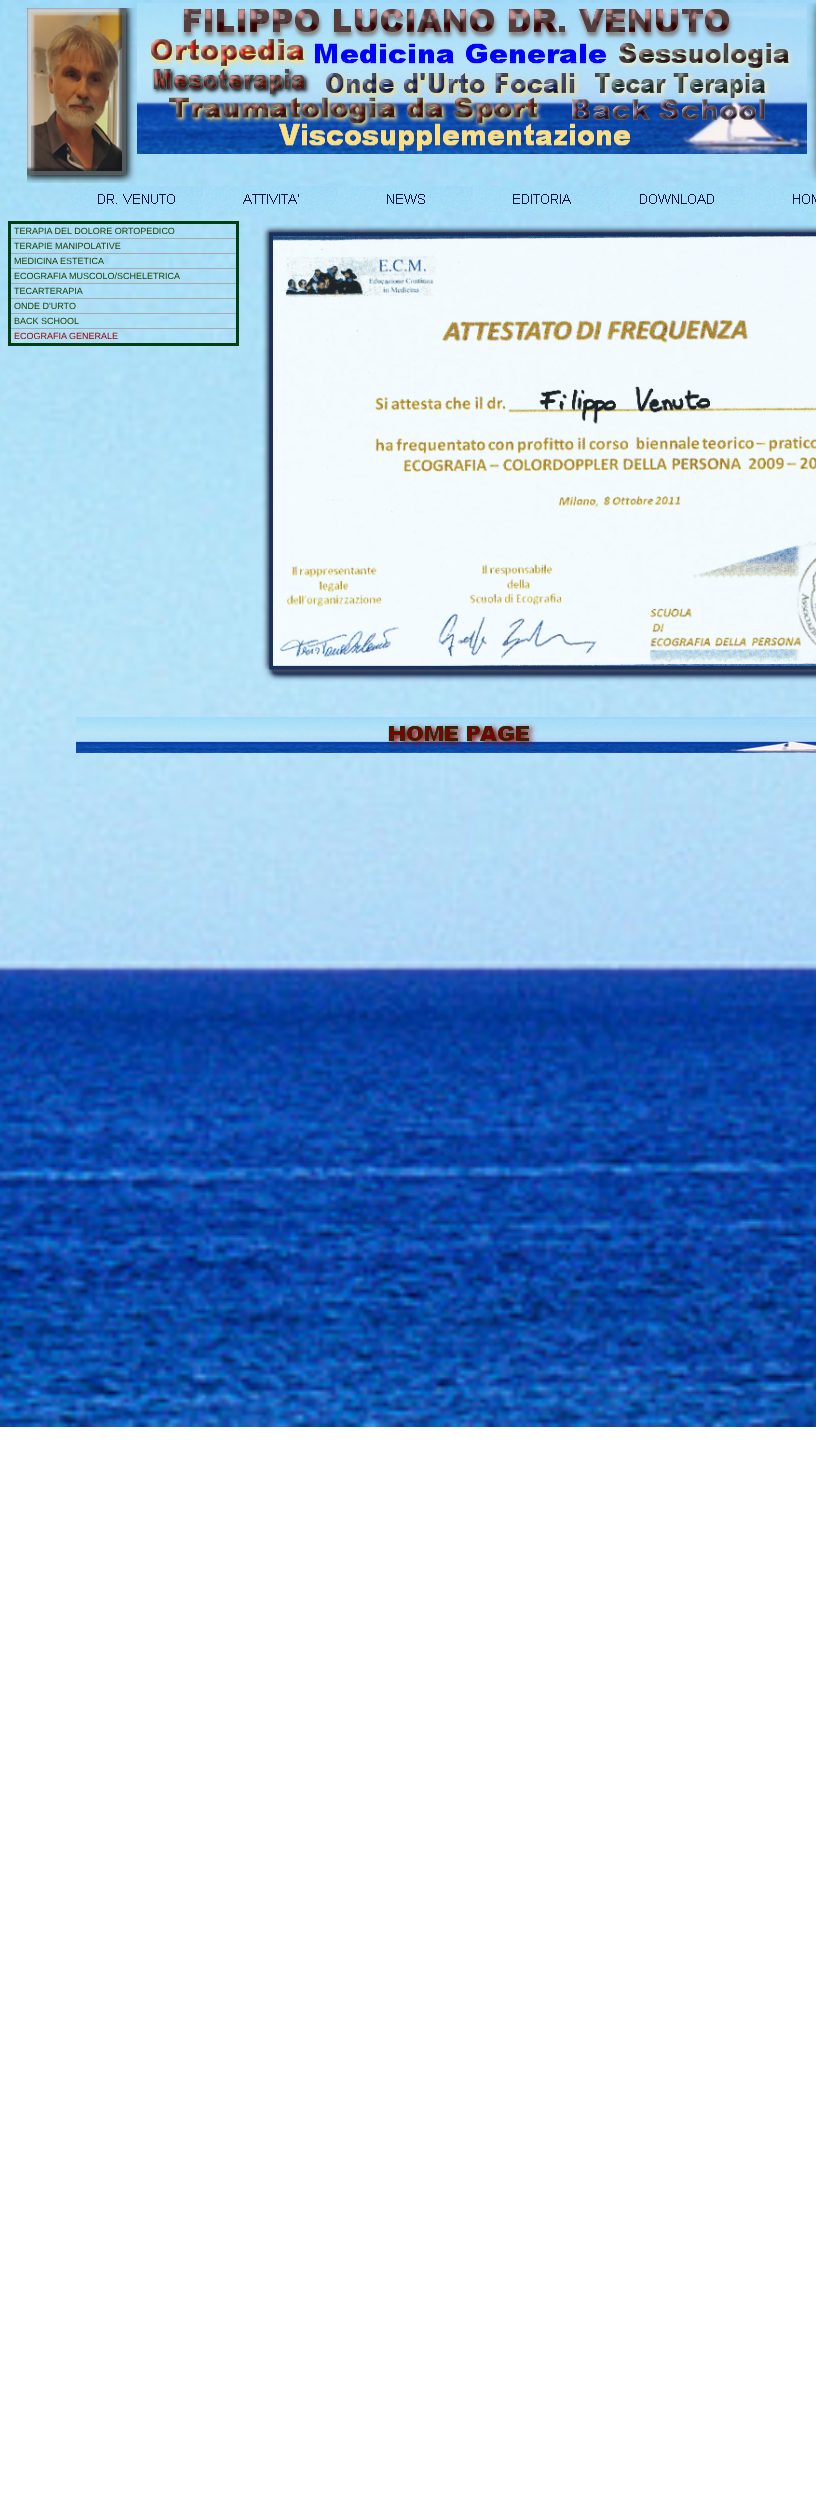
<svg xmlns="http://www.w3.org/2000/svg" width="816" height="2496">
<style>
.a{font:9px Liberation Sans;fill:#204000}
.b{font:9px Liberation Sans;fill:#a60000}
</style>
<rect width="100%" height="100%" fill="#fff"/>
<image href="1.png" x="0" y="0" width="816" height="1427"/>
<image href="2.png" x="27" y="3" width="789" height="180"/>
<image href="3.png" x="70" y="186" width="133" height="26"/>
<image href="4.png" x="205" y="186" width="133" height="26"/>
<image href="5.png" x="340" y="186" width="133" height="26"/>
<image href="6.png" x="475" y="186" width="133" height="26"/>
<image href="7.png" x="610" y="186" width="133" height="26"/>
<image href="8.png" x="745" y="186" width="71" height="26"/>
<path fill="none" stroke="#004010" stroke-width="3" d="M9.5 222.5h228v122H9.5z"/>
<path fill="#a9a9a9" d="M11 238h225v1H11z"/>
<path fill="#a9a9a9" d="M11 253h225v1H11z"/>
<path fill="#a9a9a9" d="M11 268h225v1H11z"/>
<path fill="#a9a9a9" d="M11 283h225v1H11z"/>
<path fill="#a9a9a9" d="M11 298h225v1H11z"/>
<path fill="#a9a9a9" d="M11 313h225v1H11z"/>
<path fill="#a9a9a9" d="M11 328h225v1H11z"/>
<image href="9.png" x="262" y="225" width="554" height="457"/>
<image href="10.png" x="76" y="717" width="740" height="36"/>
<text class="a" x="14" y="234">TERAPIA DEL DOLORE ORTOPEDICO</text>
<text class="a" x="14" y="249">TERAPIE MANIPOLATIVE</text>
<text class="a" x="14" y="264">MEDICINA ESTETICA</text>
<text class="a" x="14" y="279">ECOGRAFIA MUSCOLO/SCHELETRICA</text>
<text class="a" x="14" y="294">TECARTERAPIA</text>
<text class="a" x="14" y="309">ONDE D'URTO</text>
<text class="a" x="14" y="324">BACK SCHOOL</text>
<text class="b" x="14" y="339">ECOGRAFIA GENERALE</text>
</svg>
